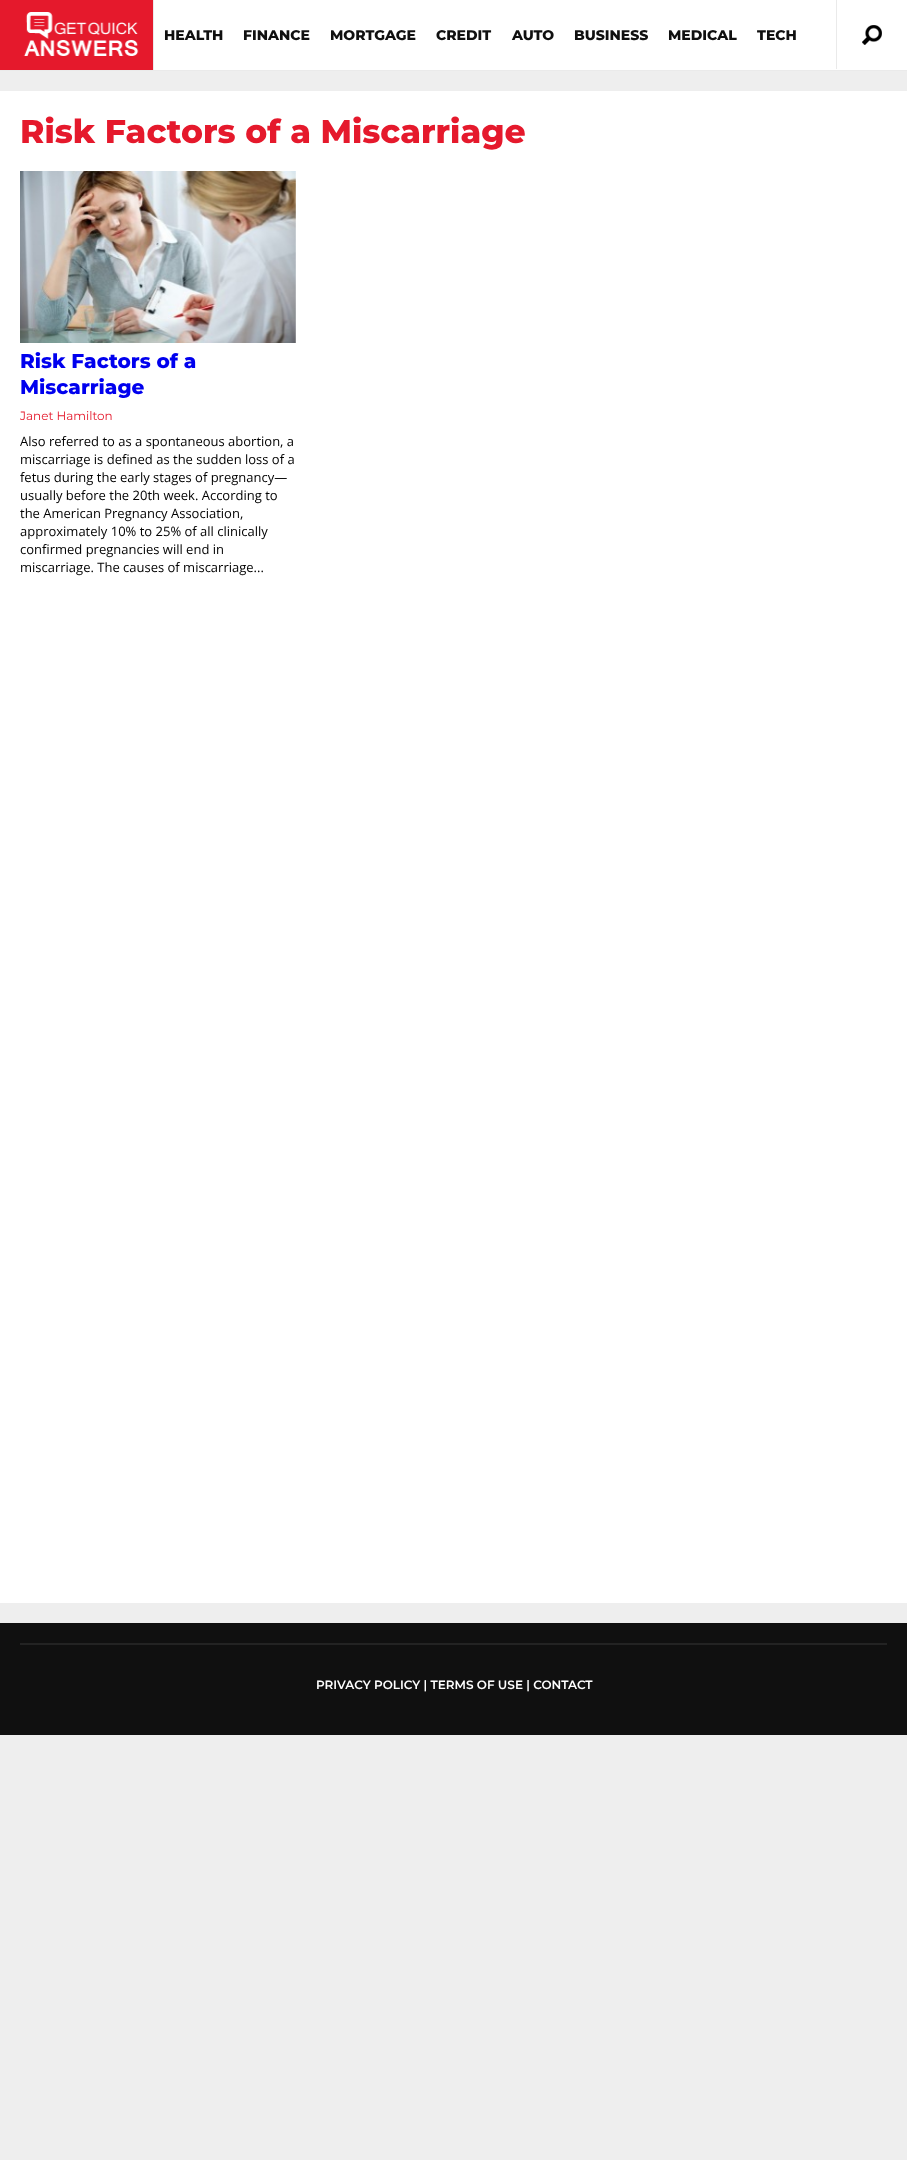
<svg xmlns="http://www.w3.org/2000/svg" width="907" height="2160">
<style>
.a{font:800 14px Montserrat;fill:#101010}
.b{font:800 33px Montserrat;fill:#e5192c}
.c{font:800 20px Montserrat;fill:#00e}
.d{font:12px Montserrat;fill:#e5192c}
.e{font:13px Open Sans;fill:#000}
.f{font:600 12px Montserrat;fill:#fff}
</style>
<rect width="100%" height="100%" fill="#eee"/>
<path fill="#fff" d="M154 0h753v70H154z"/>
<path fill="#eaeaea" d="M0 70h907v1H0z"/>
<path fill="#e5192c" d="M0 0h153v70H0z"/>
<path fill="#eaeaea" d="M153 0h1v70H153z"/>
<image href="1.png" x="23" y="12" width="116" height="44"/>
<image href="2.png" x="862" y="25" width="20" height="20"/>
<path fill="#eaeaea" d="M836 0h1v69H836z"/>
<path fill="#fff" d="M0 91h907v1512H0z"/>
<image href="3.png" x="20" y="171" width="276" height="172"/>
<path fill="#101010" d="M0 1623h907v112H0z"/>
<path fill="#232323" d="M20 1643h867v2H20z"/>
<text class="a" x="164" y="40">HEALTH</text>
<text class="a" x="243" y="40">FINANCE</text>
<text class="a" x="330" y="40">MORTGAGE</text>
<text class="a" x="436" y="40">CREDIT</text>
<text class="a" x="512" y="40">AUTO</text>
<text class="a" x="574" y="40">BUSINESS</text>
<text class="a" x="668" y="40">MEDICAL</text>
<text class="a" x="757" y="40">TECH</text>
<text class="b" x="20" y="143">Risk Factors of a Miscarriage</text>
<text class="c" x="20" y="368">Risk Factors of a</text>
<text class="c" x="20" y="394">Miscarriage</text>
<text class="d" x="20" y="420">Janet Hamilton</text>
<text class="e" x="20" y="446">Also referred to as a spontaneous abortion, a</text>
<text class="e" x="20" y="464">miscarriage is defined as the sudden loss of a</text>
<text class="e" x="20" y="482">fetus during the early stages of pregnancy—</text>
<text class="e" x="20" y="500">usually before the 20th week. According to</text>
<text class="e" x="20" y="518">the American Pregnancy Association,</text>
<text class="e" x="20" y="536">approximately 10% to 25% of all clinically</text>
<text class="e" x="20" y="554">confirmed pregnancies will end in</text>
<text class="e" x="20" y="572">miscarriage. The causes of miscarriage...</text>
<text class="f" x="316" y="1689">PRIVACY POLICY | TERMS OF USE | CONTACT</text>
</svg>
